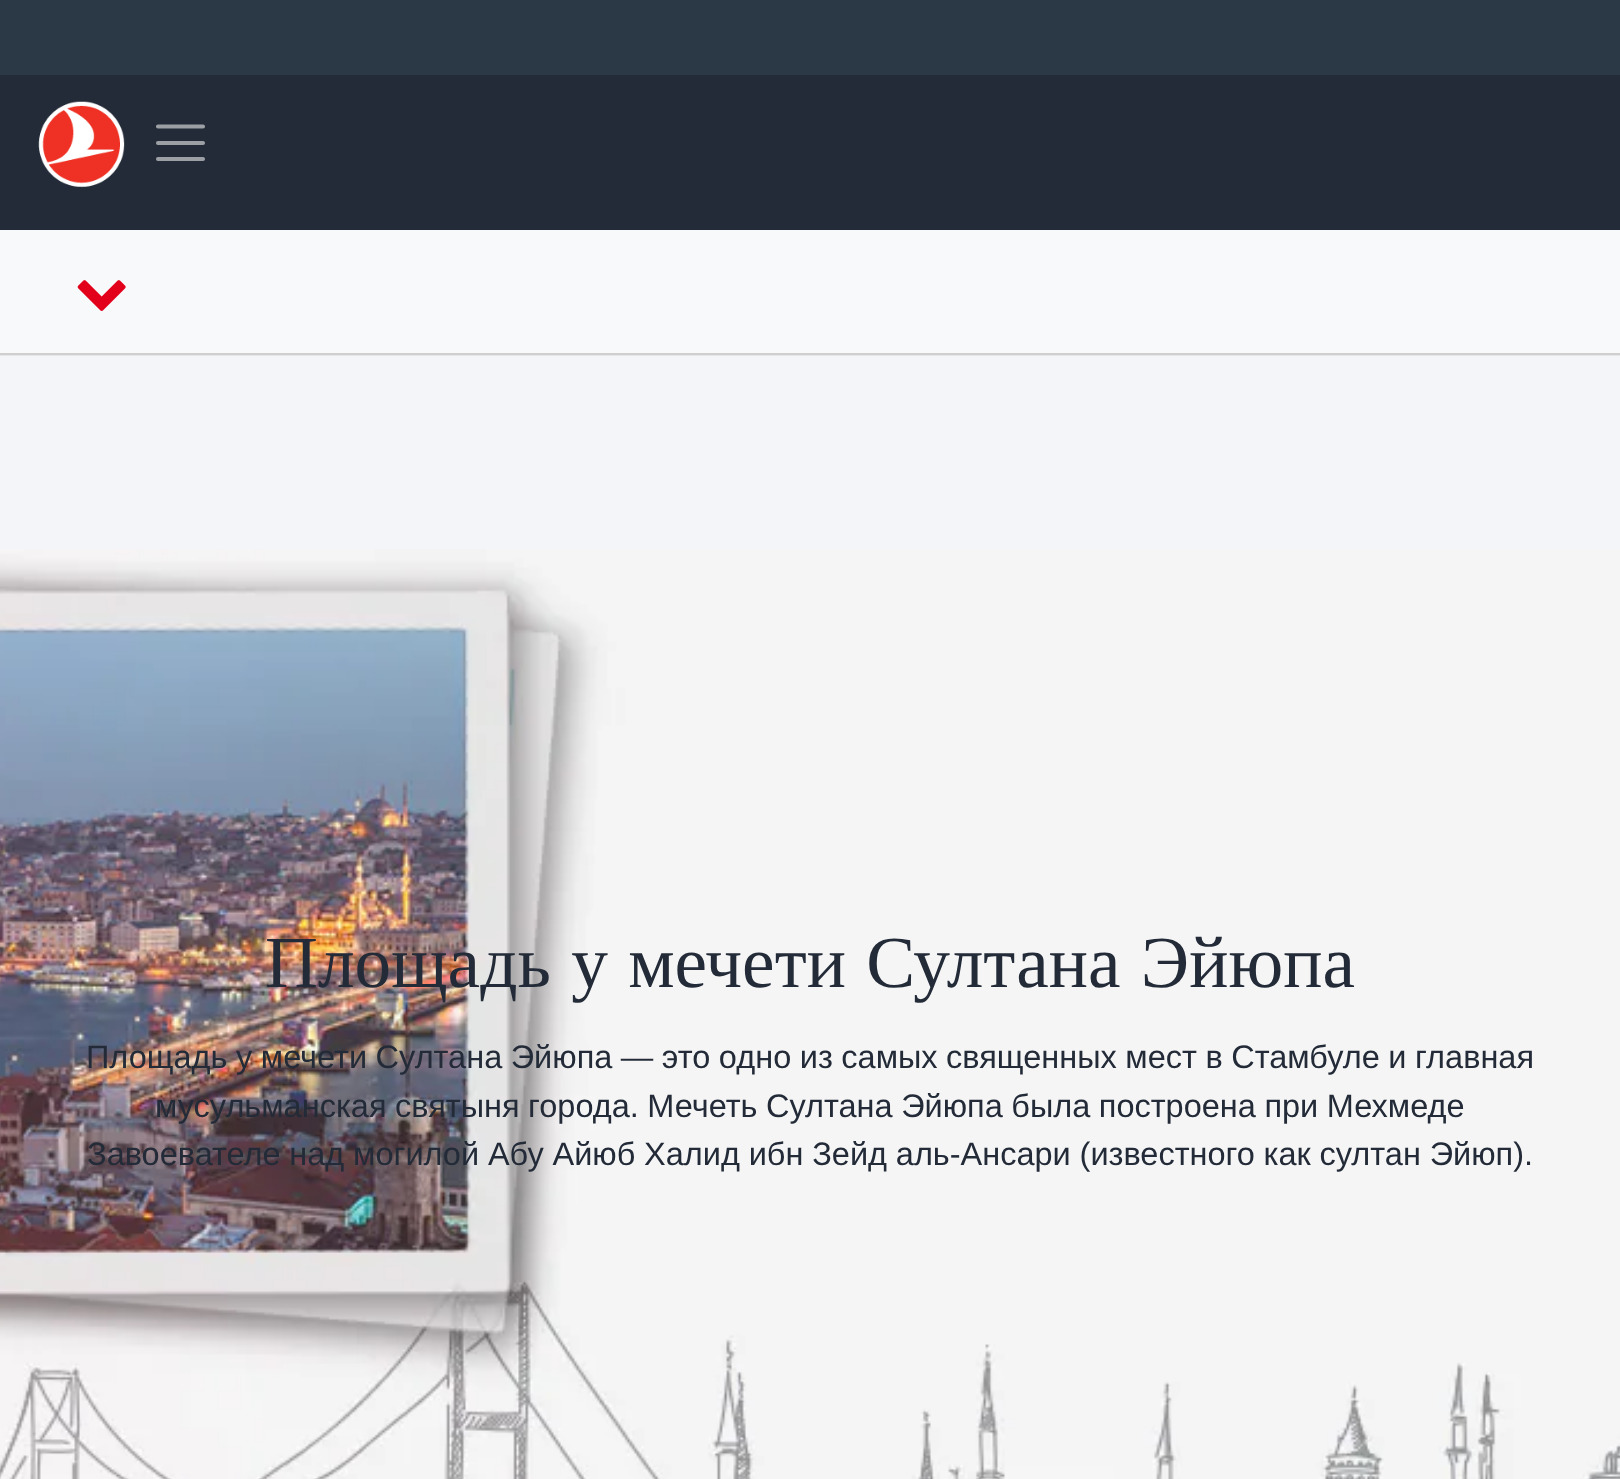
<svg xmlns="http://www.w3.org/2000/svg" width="1620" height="1479">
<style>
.a{font:73.3px Liberation Serif;fill:#232b38}
.b{font:32.5px Liberation Sans;fill:#232b38}
</style>
<rect width="100%" height="100%" fill="#f4f5f8"/>
<path fill="#232b38" d="M0 75h1620v155H0z"/>
<path fill="#2b3947" d="M0 0h1620v75H0z"/>
<image href="1.png" x="38" y="101" width="87" height="87"/>
<path fill="none" stroke="#9ca0a5" stroke-width="4.1" stroke-linecap="round" d="M158 126.5h45m-45 16.5h45m-45 16h45"/>
<path fill="#f8f9fa" d="M0 230h1620v123H0z"/>
<image href="2.png" x="77" y="280" width="49" height="31"/>
<image href="3.png" x="0" y="549" width="1620" height="930"/>
<path fill="#e6e6e6" d="M0 355h1620v1H0z"/>
<path fill="#cfcfcf" d="M0 353h1620v2H0z"/>
<text class="a" x="265" y="987" word-spacing="2">Площадь у мечети Султана Эйюпа</text>
<text class="b" x="86" y="1068" word-spacing="-0.5">Площадь у мечети Султана Эйюпа — это одно из самых священных мест в Стамбуле и главная</text>
<text class="b" x="155" y="1117" word-spacing="-0.5">мусульманская святыня города. Мечеть Султана Эйюпа была построена при Мехмеде</text>
<text class="b" x="87" y="1165" word-spacing="-0.25">Завоевателе над могилой Абу Айюб Халид ибн Зейд аль-Ансари (известного как султан Эйюп).</text>
</svg>
